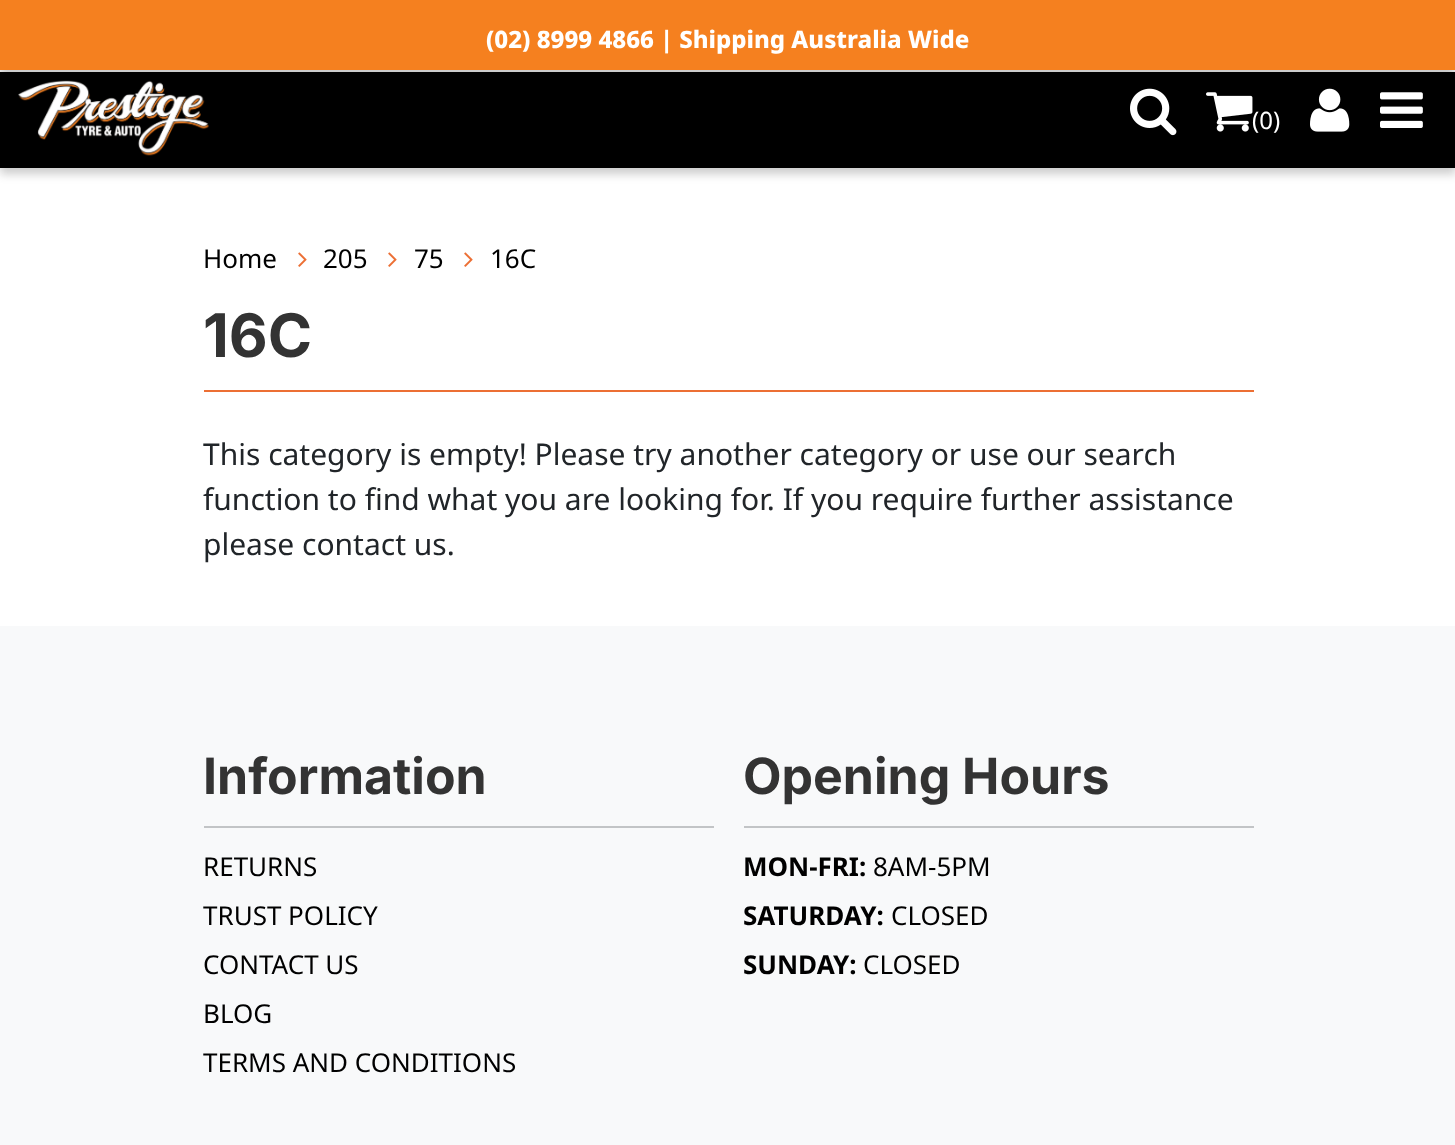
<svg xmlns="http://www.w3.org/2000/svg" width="1455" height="1145">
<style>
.a{font:800 24px Noto Sans;fill:#fff}
.b{font:24px Noto Sans;fill:#fff}
.c{font:26px Noto Sans;fill:#000}
.d{font:bold 60px Inter;fill:#333}
.e{font:30px Noto Sans;fill:#212529}
.f{font:bold 50px Inter;fill:#333}
.g{font:bold 26px Noto Sans;fill:#000}
</style>
<rect width="100%" height="100%" fill="#fff"/>
<path fill="#00000033" filter="blur(5px)" d="M0 4h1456v170H0z"/>
<path fill="#f5801f" d="M0 0h1455v70H0z"/>
<path fill="#000" d="M0 72h1455v96H0z"/>
<image href="1.png" x="18" y="80" width="191" height="76"/>
<image href="2.png" x="1130" y="88" width="47" height="48"/>
<image href="3.png" x="1206" y="92" width="47" height="40"/>
<image href="4.png" x="1310" y="88" width="40" height="44"/>
<image href="5.png" x="1380" y="92" width="43" height="36"/>
<image href="6.png" x="298" y="252" width="9" height="15"/>
<image href="6.png" x="388" y="252" width="9" height="15"/>
<image href="6.png" x="464" y="252" width="9" height="15"/>
<path fill="#ec6f34" d="M204 390h1050v2H204z"/>
<path fill="#f8f9fa" d="M0 626h1455v519H0z"/>
<path fill="#c2c4c6" d="M204 826h510v2H204z"/>
<path fill="#c2c4c6" d="M744 826h510v2H744z"/>
<text class="a" x="486" y="48">(02) 8999 4866 | Shipping Australia Wide</text>
<text class="b" x="1252" y="129">(0)</text>
<text class="c" x="203" y="268">Home</text>
<text class="c" x="323" y="268">205</text>
<text class="c" x="414" y="268">75</text>
<text class="c" x="490" y="268">16C</text>
<text class="d" x="203" y="357">16C</text>
<text class="e" x="203" y="465">This category is empty! Please try another category or use our search</text>
<text class="e" x="203" y="510">function to find what you are looking for. If you require further assistance</text>
<text class="e" x="203" y="555">please contact us.</text>
<text class="f" x="203" y="794">Information</text>
<text class="c" x="203" y="876">RETURNS</text>
<text class="c" x="203" y="925">TRUST POLICY</text>
<text class="c" x="203" y="974">CONTACT US</text>
<text class="c" x="203" y="1023">BLOG</text>
<text class="c" x="203" y="1072">TERMS AND CONDITIONS</text>
<text class="f" x="743" y="794">Opening Hours</text>
<text class="g" x="743" y="876">MON-FRI:</text>
<text class="c" x="873" y="876">8AM-5PM</text>
<text class="g" x="743" y="925">SATURDAY:</text>
<text class="c" x="891" y="925">CLOSED</text>
<text class="g" x="743" y="974">SUNDAY:</text>
<text class="c" x="863" y="974">CLOSED</text>
</svg>
